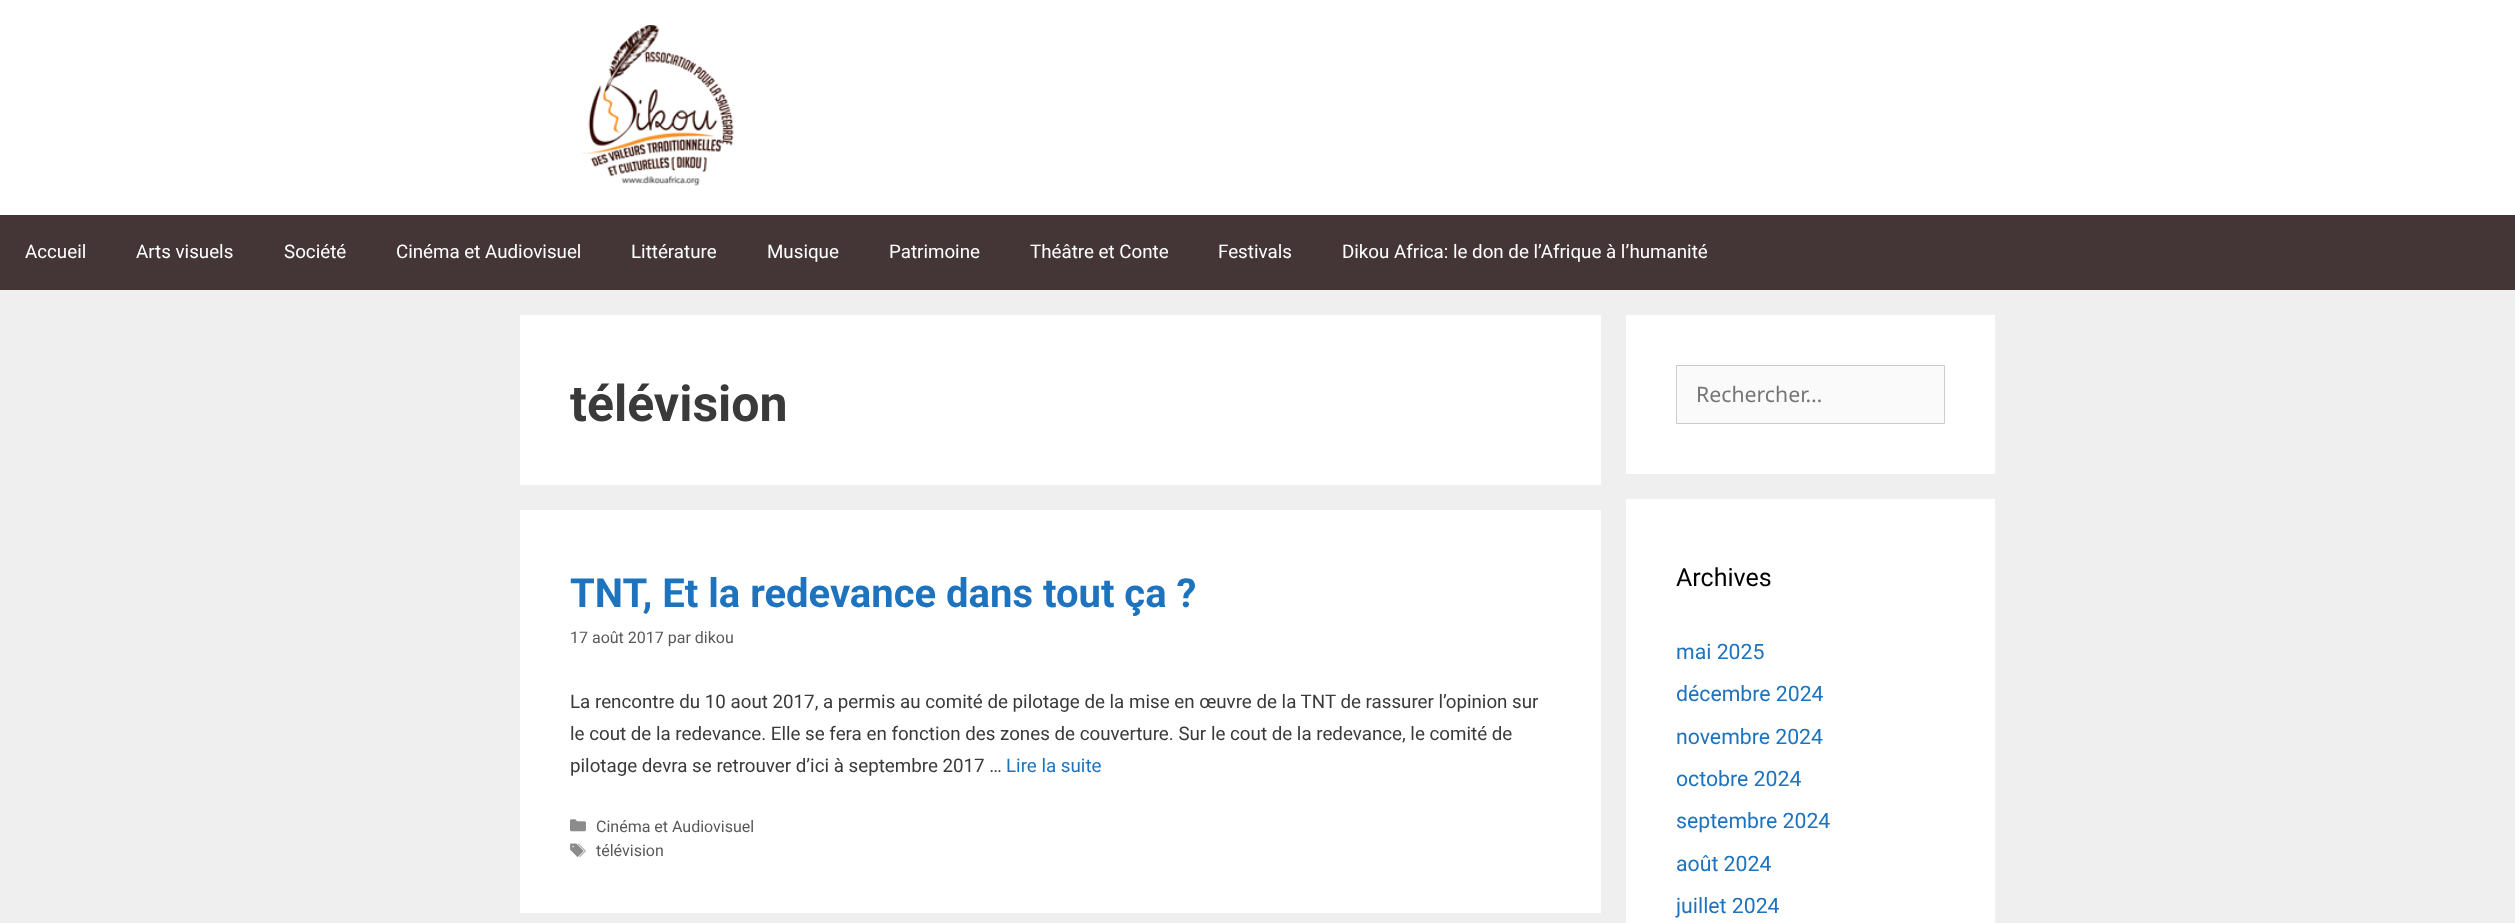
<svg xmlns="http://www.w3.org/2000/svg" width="2515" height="923">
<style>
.a{font:18.75px Roboto;fill:#fff}
.b{font:bold 50px Roboto;fill:#3a3a3a}
.c{font:bold 40px Roboto;fill:#1e73be}
.d{font:16px Roboto;fill:#595959}
.e{font:18.75px Roboto;fill:#3a3a3a}
.f{font:18.75px Roboto;fill:#1e73be}
.g{font:21.25px Noto Sans;fill:#757575}
.h{font:25px Roboto;fill:#000}
.i{font:21.25px Roboto;fill:#1e73be}
</style>
<rect width="100%" height="100%" fill="#efefef"/>
<path fill="#fff" d="M0 0h2515v215H0z"/>
<image href="1.png" x="581" y="25" width="153" height="161"/>
<path fill="#443636" d="M0 215h2515v75H0z"/>
<path fill="#fff" d="M520 315h1081v170H520z"/>
<path fill="#fff" d="M520 510h1081v403H520z"/>
<image href="2.png" x="570" y="819" width="16" height="13"/>
<image href="3.png" x="570" y="843" width="16" height="14"/>
<path fill="#fff" d="M1626 315h369v159H1626z"/>
<path fill="#fafafa" stroke="#ccc" d="M1676.5 365.5h268v58H1676.5z"/>
<path fill="#fff" d="M1626 499h369v424H1626z"/>
<text class="a" x="25" y="258">Accueil</text>
<text class="a" x="136" y="258">Arts visuels</text>
<text class="a" x="284" y="258">Société</text>
<text class="a" x="396" y="258">Cinéma et Audiovisuel</text>
<text class="a" x="631" y="258">Littérature</text>
<text class="a" x="767" y="258">Musique</text>
<text class="a" x="889" y="258">Patrimoine</text>
<text class="a" x="1030" y="258">Théâtre et Conte</text>
<text class="a" x="1218" y="258">Festivals</text>
<text class="a" x="1342" y="258">Dikou Africa: le don de l’Afrique à l’humanité</text>
<text class="b" x="570" y="421">télévision</text>
<text class="c" x="570" y="607">TNT, Et la redevance dans tout ça ?</text>
<text class="d" x="570" y="643">17 août 2017 par dikou</text>
<text class="e" x="570" y="708">La rencontre du 10 aout 2017, a permis au comité de pilotage de la mise en œuvre de la TNT de rassurer l’opinion sur</text>
<text class="e" x="570" y="740">le cout de la redevance. Elle se fera en fonction des zones de couverture. Sur le cout de la redevance, le comité de</text>
<text class="e" x="570" y="772">pilotage devra se retrouver d’ici à septembre 2017 …</text>
<text class="f" x="1006" y="772">Lire la suite</text>
<text class="d" x="596" y="832">Cinéma et Audiovisuel</text>
<text class="d" x="596" y="856">télévision</text>
<text class="g" x="1696" y="402">Rechercher…</text>
<text class="h" x="1676" y="586">Archives</text>
<text class="i" x="1676" y="659">mai 2025</text>
<text class="i" x="1676" y="701">décembre 2024</text>
<text class="i" x="1676" y="744">novembre 2024</text>
<text class="i" x="1676" y="786">octobre 2024</text>
<text class="i" x="1676" y="828">septembre 2024</text>
<text class="i" x="1676" y="871">août 2024</text>
<text class="i" x="1676" y="913">juillet 2024</text>
</svg>
